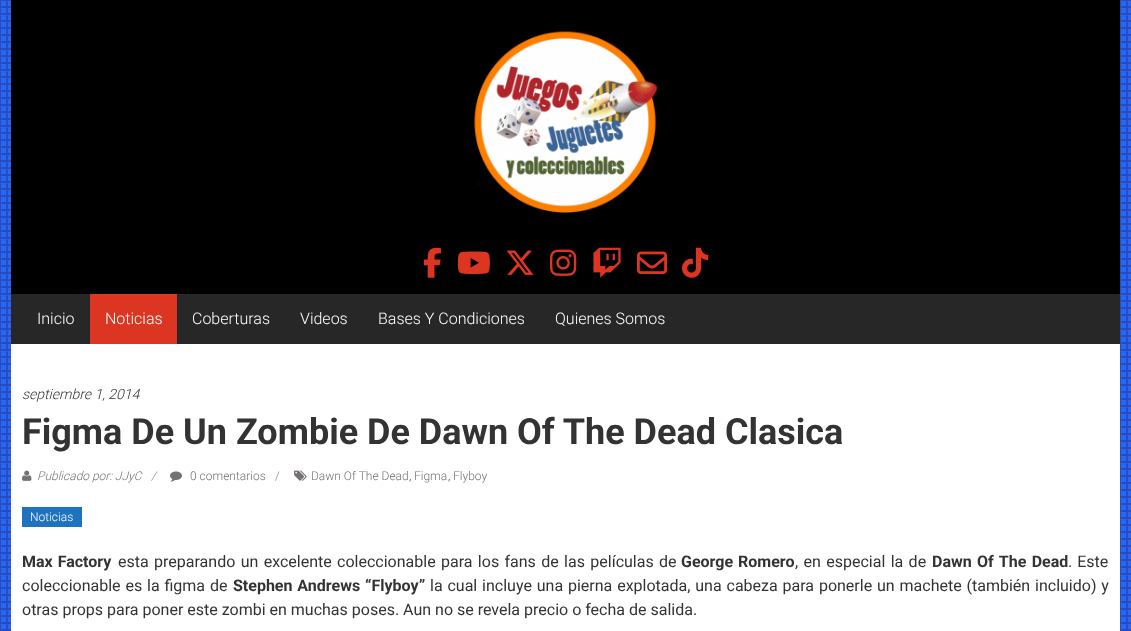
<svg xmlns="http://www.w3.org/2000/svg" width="1131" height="631">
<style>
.a{font:300 16px Roboto;fill:#fff}
.b{font:italic 300 14px Roboto;fill:#333}
.c{font:bold 36px Roboto;fill:#333}
.d{font:italic 300 12px Roboto;fill:#767272}
.e{font:italic 300 12px Roboto;fill:#808080}
.f{font:300 12px Roboto;fill:#767272}
.g{font:300 12px Roboto;fill:#808080}
.h{font:300 12px Roboto;fill:#333}
.i{font:300 12px Roboto;fill:#fff}
.j{font:bold 16px Roboto;fill:#333}
.k{font:16px Roboto;fill:#333}
</style>
<rect width="100%" height="100%" fill="#fff"/>
<image href="1.png" x="0" y="0" width="1131" height="631"/>
<path fill="#fff" d="M11 344h1109v287H11z"/>
<path fill="#000" d="M11 0h1109v294H11z"/>
<image href="2.png" x="474" y="31" width="184" height="182"/>
<image href="3.png" x="423" y="247" width="18" height="31"/>
<image href="4.png" x="457" y="251" width="33" height="23"/>
<image href="5.png" x="506" y="250" width="28" height="25"/>
<image href="6.png" x="550" y="249" width="27" height="27"/>
<image href="7.png" x="593" y="247" width="28" height="31"/>
<image href="8.png" x="637" y="251" width="30" height="23"/>
<image href="9.png" x="682" y="247" width="27" height="31"/>
<path fill="#272727" d="M11 294h1109v50H11z"/>
<path fill="#dc3522" d="M90 294h87v50H90z"/>
<image href="10.png" x="22" y="470" width="10" height="11"/>
<image href="11.png" x="170" y="471" width="12" height="11"/>
<image href="12.png" x="294" y="470" width="13" height="11"/>
<path fill="#1e73be" d="M22 507h60v20H22z"/>
<text class="a" x="37" y="324">Inicio</text>
<text class="a" x="105" y="324">Noticias</text>
<text class="a" x="192" y="324">Coberturas</text>
<text class="a" x="300" y="324">Videos</text>
<text class="a" x="378" y="324">Bases Y Condiciones</text>
<text class="a" x="555" y="324">Quienes Somos</text>
<text class="b" x="22" y="399">septiembre 1, 2014</text>
<text class="c" x="22" y="444">Figma De Un Zombie De Dawn Of The Dead Clasica</text>
<text class="d" x="37" y="480">Publicado por: JJyC</text>
<text class="e" x="151" y="480">/</text>
<text class="f" x="190" y="480">0 comentarios</text>
<text class="g" x="275" y="480">/</text>
<text class="f" x="311" y="480">Dawn Of The Dead</text>
<text class="h" x="409" y="480">,</text>
<text class="f" x="414" y="480">Figma</text>
<text class="h" x="448" y="480">,</text>
<text class="f" x="453" y="480">Flyboy</text>
<text class="i" x="30" y="521">Noticias</text>
<text class="j" x="22" y="567" word-spacing="1">Max Factory</text>
<text class="k" x="118" y="567" word-spacing="1.4">esta preparando un excelente coleccionable para los fans de las películas de</text>
<text class="j" x="681" y="567" word-spacing="1">George Romero</text>
<text class="k" x="795" y="567" word-spacing="1.4">, en especial la de</text>
<text class="j" x="932" y="567" word-spacing="1.4">Dawn Of The Dead</text>
<text class="k" x="1068" y="567" word-spacing="1">. Este</text>
<text class="k" x="22" y="591" word-spacing="0.9">coleccionable es la figma de</text>
<text class="j" x="233" y="591" word-spacing="0.9">Stephen Andrews “Flyboy”</text>
<text class="k" x="430" y="591" word-spacing="0.9">la cual incluye una pierna explotada, una cabeza para ponerle un machete (también incluido) y</text>
<text class="k" x="22" y="615">otras props para poner este zombi en muchas poses. Aun no se revela precio o fecha de salida.</text>
</svg>
